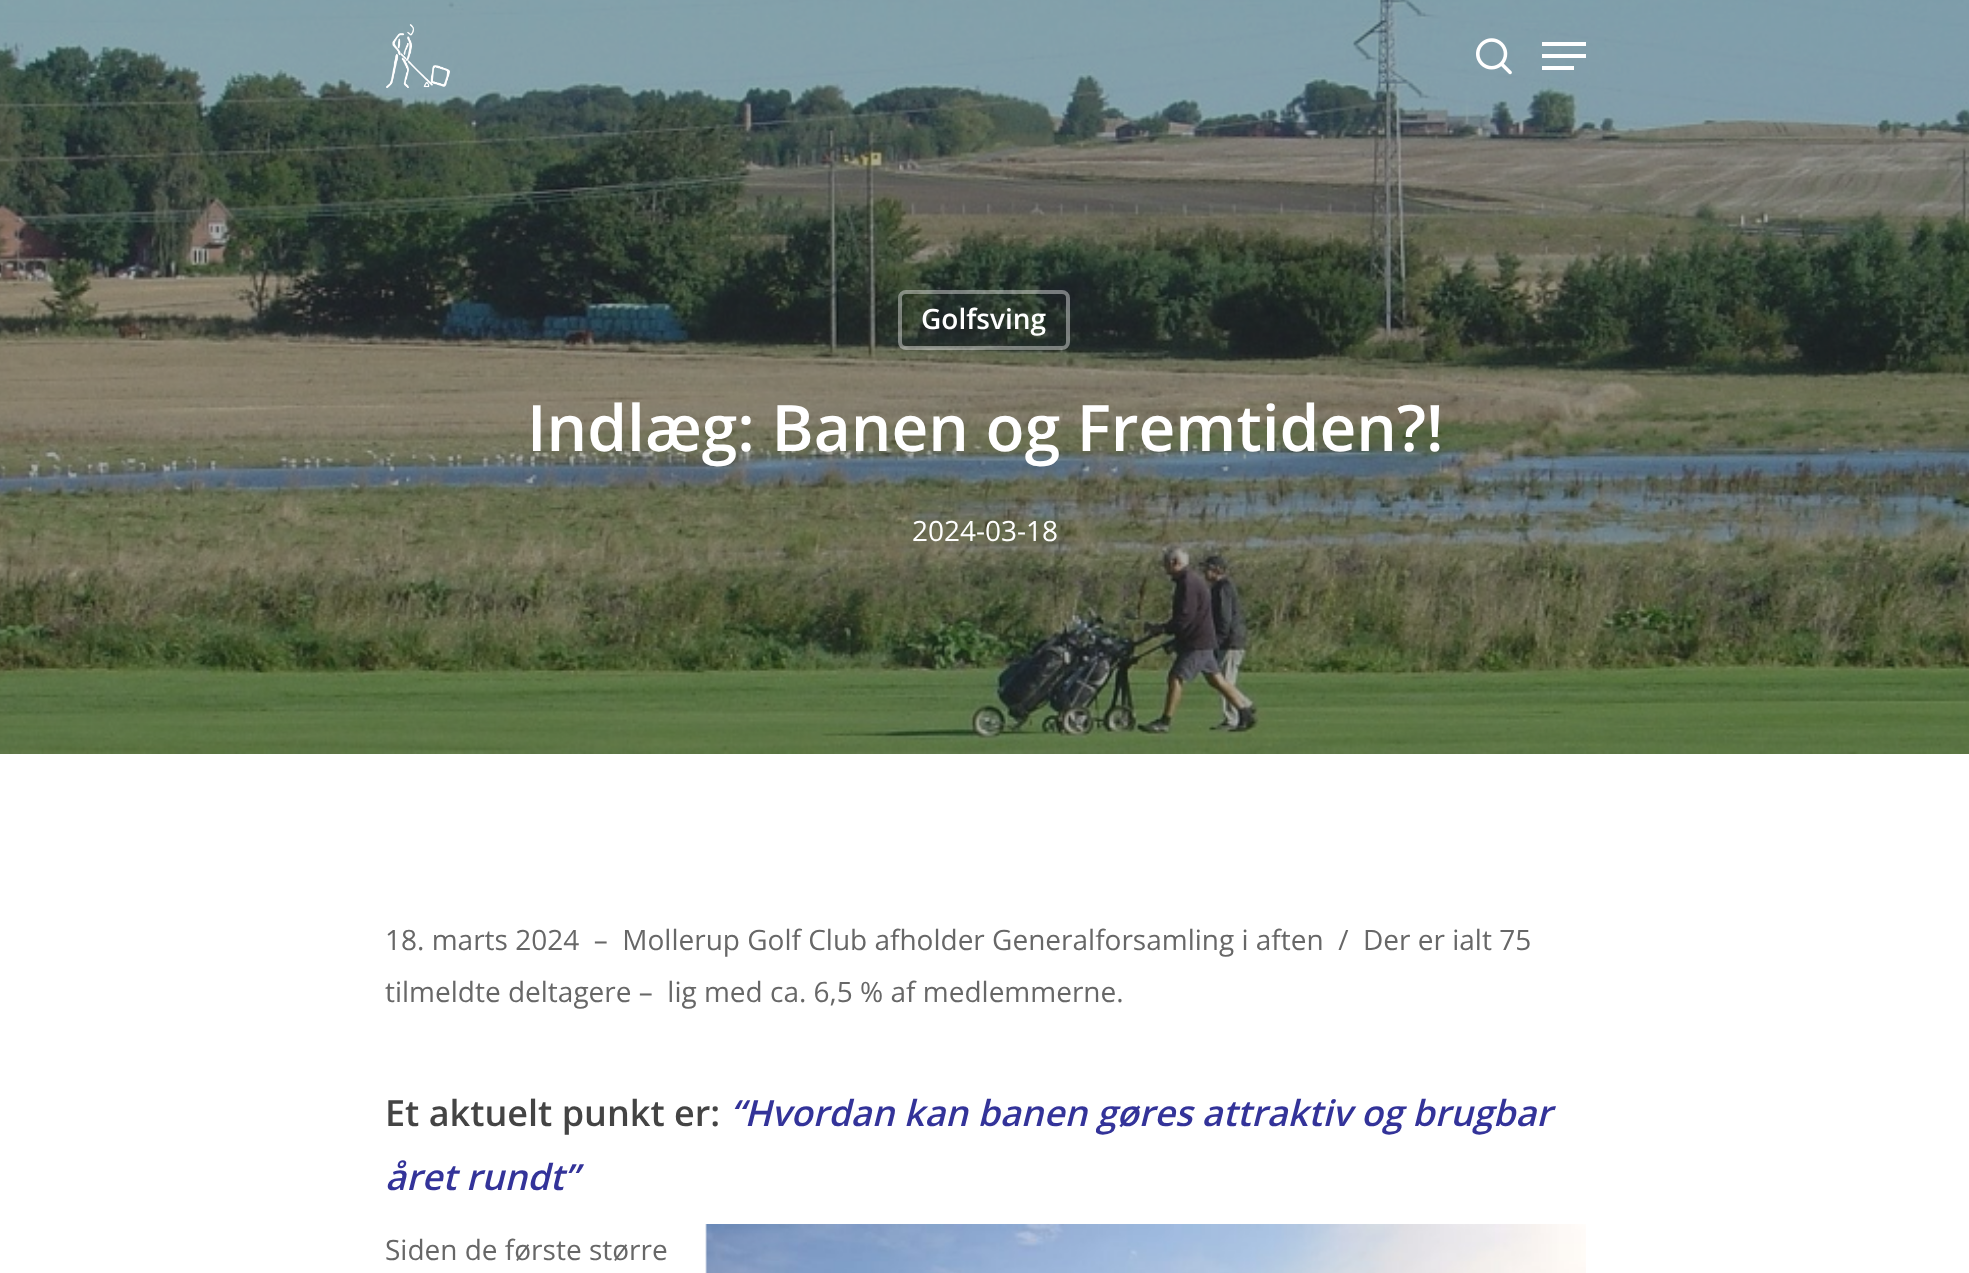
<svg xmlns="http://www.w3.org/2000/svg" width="1969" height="1273">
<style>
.a{font:600 28px Open Sans;fill:#fff}
.b{font:600 64px Open Sans;fill:#fff}
.c{font:28px Open Sans;fill:#fff}
.d{font:28px Open Sans;fill:#676767}
.e{font:600 36px Open Sans;fill:#444}
.f{font:italic 600 36px Open Sans;fill:#339}
</style>
<rect width="100%" height="100%" fill="#fff"/>
<image href="3.png" x="0" y="0" width="1969" height="754"/>
<image href="1.png" x="386" y="24" width="64" height="64"/>
<image href="2.png" x="1476" y="38" width="36" height="37"/>
<path fill="#fff" d="M1542 42h44v4H1542z"/>
<path fill="#fff" d="M1542 66h32v4H1542z"/>
<path fill="#fff" d="M1542 54h44v4H1542z"/>
<rect fill="none" stroke="#ffffff66" stroke-width="4" x="900" y="292" width="168" height="56" rx="6"/>
<image href="4.png" x="705" y="1224" width="881" height="49"/>
<text class="a" x="921" y="329">Golfsving</text>
<text class="b" x="527" y="451">Indlæg: Banen og Fremtiden?!</text>
<text class="c" x="912" y="541">2024-03-18</text>
<text class="d" xml:space="preserve" x="385" y="950">18. marts 2024  –  Mollerup Golf Club afholder Generalforsamling i aften  /  Der er ialt 75</text>
<text class="d" xml:space="preserve" x="385" y="1002">tilmeldte deltagere –  lig med ca. 6,5 % af medlemmerne.</text>
<text class="e" x="385" y="1126">Et aktuelt punkt er:</text>
<text class="f" x="730" y="1126">“Hvordan kan banen gøres attraktiv og brugbar</text>
<text class="f" x="385" y="1190">året rundt”</text>
<text class="d" x="385" y="1260">Siden de første større</text>
</svg>
